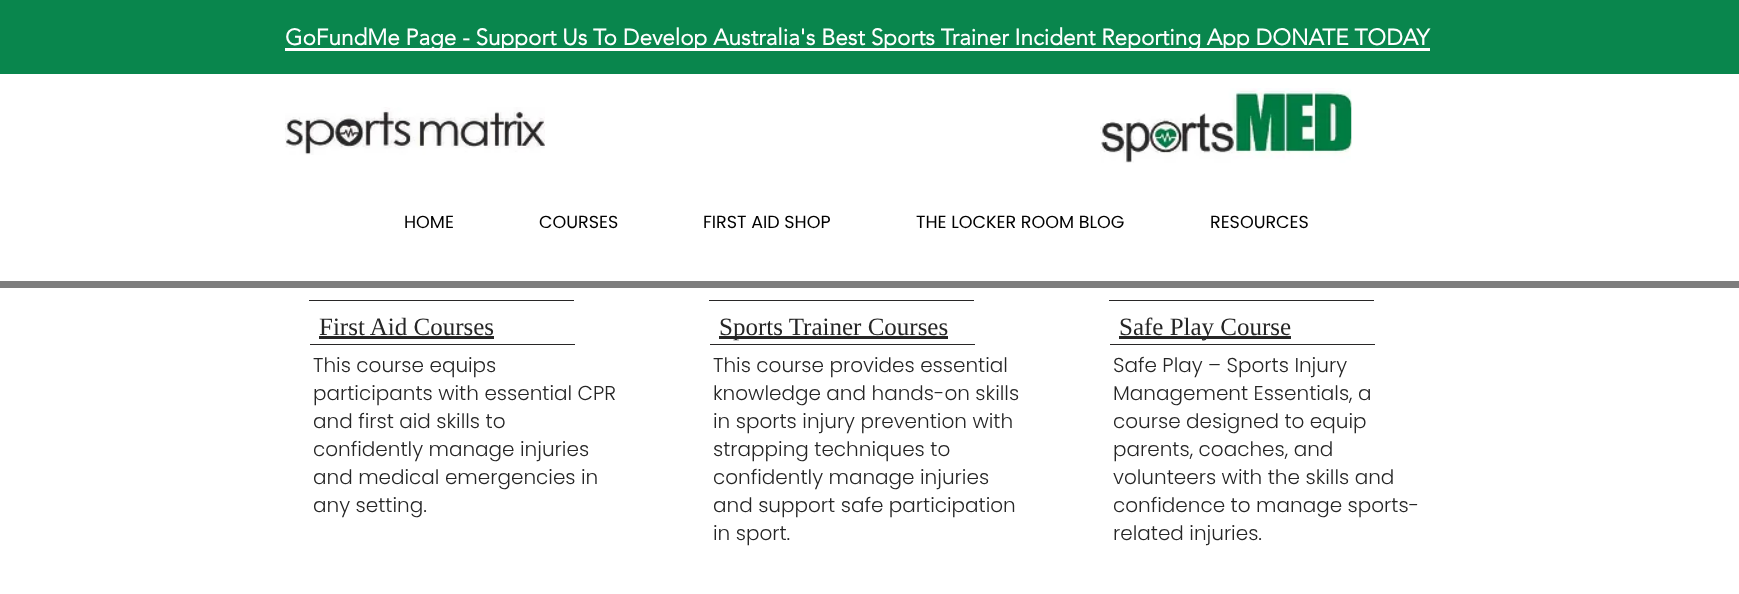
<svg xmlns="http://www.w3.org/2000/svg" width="1739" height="594">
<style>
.a{font:bold 22.5px 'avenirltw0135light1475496';fill:#fff}
.b{font:17.5px Poppins;fill:#000}
.c{font:25px Liberation Serif;fill:#262626}
.d{font:300 20px Poppins;fill:#262626}
</style>
<rect width="100%" height="100%" fill="#fff"/>
<path fill="#09864d" d="M0 0h1739v74H0z"/>
<path fill="#fff" d="M285 48h1145v3H285z"/>
<image href="1.png" x="285" y="107" width="260" height="48"/>
<image href="2.png" x="1100" y="88" width="252" height="75"/>
<path fill="#7d7d7d" d="M0 281h1739v7H0z"/>
<path fill="#282626" d="M309 300h265v1H309z"/>
<path fill="#262626" d="M319 336h175v3H319z"/>
<path fill="#282626" d="M310 344h265v1H310z"/>
<path fill="#282626" d="M709 300h265v1H709z"/>
<path fill="#262626" d="M719 336h229v3H719z"/>
<path fill="#282626" d="M710 344h265v1H710z"/>
<path fill="#282626" d="M1109 300h265v1H1109z"/>
<path fill="#262626" d="M1119 336h172v3H1119z"/>
<path fill="#282626" d="M1110 344h265v1H1110z"/>
<text class="a" x="285" y="45">GoFundMe Page - Support Us To Develop Australia's Best Sports Trainer Incident Reporting App DONATE TODAY</text>
<text class="b" x="404" y="228">HOME</text>
<text class="b" x="539" y="228">COURSES</text>
<text class="b" x="703" y="228">FIRST AID SHOP</text>
<text class="b" x="916" y="228">THE LOCKER ROOM BLOG</text>
<text class="b" x="1210" y="228">RESOURCES</text>
<text class="c" x="319" y="335">First Aid Courses</text>
<text class="d" x="313" y="372">This course equips</text>
<text class="d" x="313" y="400">participants with essential CPR</text>
<text class="d" x="313" y="428">and first aid skills to</text>
<text class="d" x="313" y="456">confidently manage injuries</text>
<text class="d" x="313" y="484">and medical emergencies in</text>
<text class="d" x="313" y="512">any setting.</text>
<text class="c" x="719" y="335">Sports Trainer Courses</text>
<text class="d" x="713" y="372">This course provides essential</text>
<text class="d" x="713" y="400">knowledge and hands-on skills</text>
<text class="d" x="713" y="428">in sports injury prevention with</text>
<text class="d" x="713" y="456">strapping techniques to</text>
<text class="d" x="713" y="484">confidently manage injuries</text>
<text class="d" x="713" y="512">and support safe participation</text>
<text class="d" x="713" y="540">in sport.</text>
<text class="c" x="1119" y="335">Safe Play Course</text>
<text class="d" x="1113" y="372">Safe Play – Sports Injury</text>
<text class="d" x="1113" y="400">Management Essentials, a</text>
<text class="d" x="1113" y="428">course designed to equip</text>
<text class="d" x="1113" y="456">parents, coaches, and</text>
<text class="d" x="1113" y="484">volunteers with the skills and</text>
<text class="d" x="1113" y="512">confidence to manage sports-</text>
<text class="d" x="1113" y="540">related injuries.</text>
</svg>
